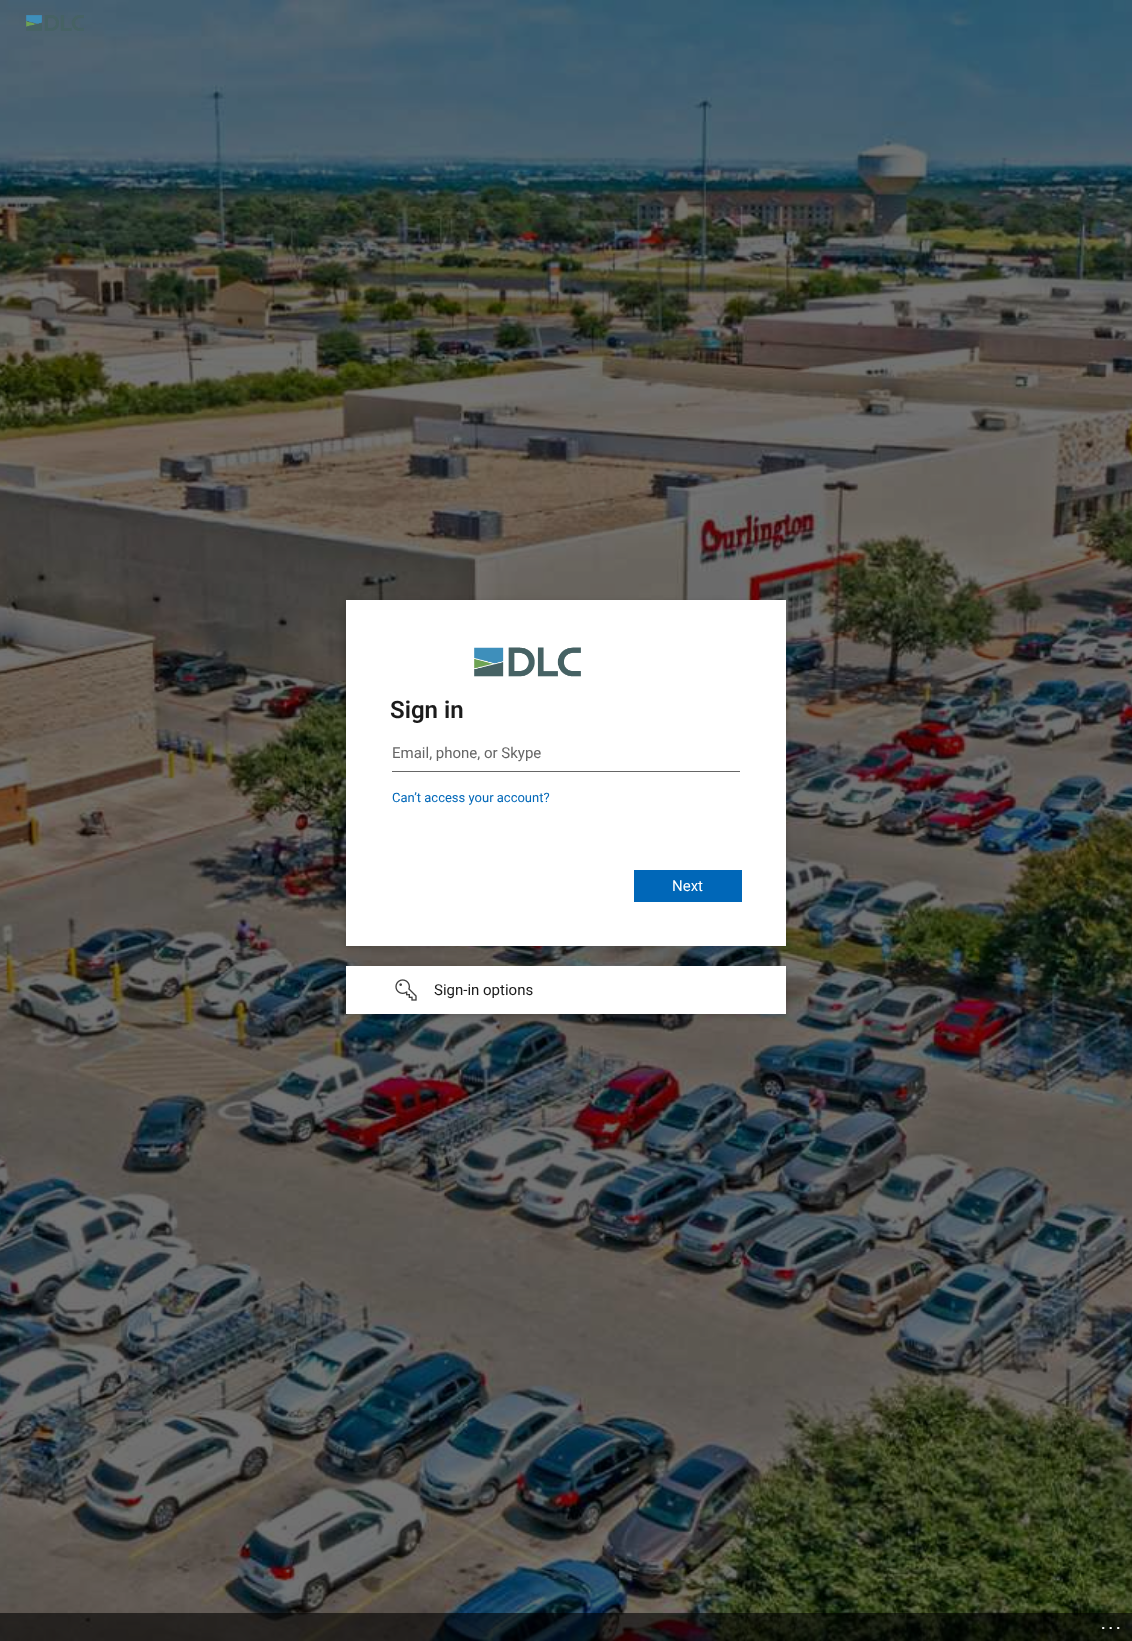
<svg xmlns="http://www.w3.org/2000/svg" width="1132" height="1641">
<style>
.a{font:600 24px Roboto;fill:#1b1b1b}
.b{font:15px Roboto;fill:#666}
.c{font:13px Roboto;fill:#0067b8}
.d{font:15px Roboto;fill:#fff}
.e{font:15px Roboto;fill:#1b1b1b}
.f{font:600 16px Roboto;letter-spacing:3px;fill:#fff}
</style>
<rect width="100%" height="100%" fill="#fff"/>
<image href="1.png" x="0" y="0" width="1132" height="1641"/>
<image href="2.png" x="26" y="15" width="58" height="16"/>
<path fill="#00000033" filter="blur(3px)" d="M346 602h440v346H346z"/>
<path fill="#fff" d="M346 600h440v346H346z"/>
<image href="3.png" x="474" y="647" width="107" height="30"/>
<path fill="#666" d="M392 771h348v1H392z"/>
<path fill="#0067b8" d="M634 870h108v32H634z"/>
<path fill="#00000033" filter="blur(3px)" d="M346 968h440v48H346z"/>
<path fill="#fff" d="M346 966h440v48H346z"/>
<image href="4.png" x="395" y="979" width="22" height="22"/>
<path fill="#00000099" d="M0 1613h1132v28H0z"/>
<text class="a" x="390" y="718">Sign in</text>
<text class="b" x="392" y="758">Email, phone, or Skype</text>
<text class="c" x="392" y="802">Can’t access your account?</text>
<text class="d" x="672" y="891">Next</text>
<text class="e" x="434" y="995">Sign-in options</text>
<text class="f" x="1101" y="1629">...</text>
</svg>
